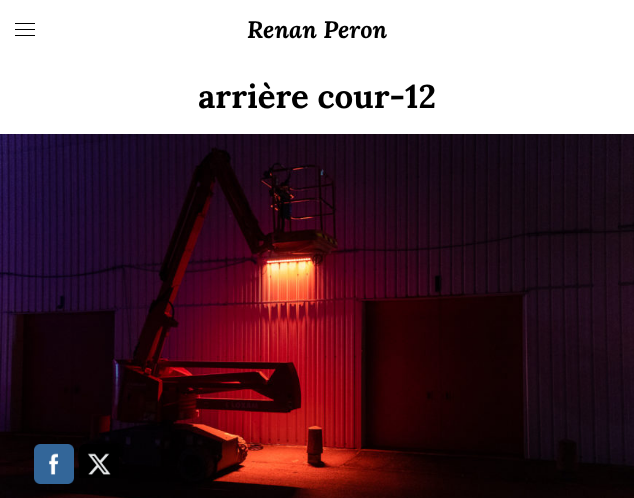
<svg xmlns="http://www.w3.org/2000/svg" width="634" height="498">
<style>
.a{font:italic bold 24px Lora;fill:#000}
.b{font:bold 33px Lora;fill:#000}
</style>
<rect width="100%" height="100%" fill="#fff"/>
<path fill="#000" d="M15 29h20v1H15z"/>
<path fill="#000" d="M15 23h20v1H15z"/>
<path fill="#000" d="M15 35h20v1H15z"/>
<image href="1.png" x="0" y="134" width="634" height="364"/>
<image href="2.png" x="34" y="444" width="40" height="40"/>
<image href="3.png" x="79" y="444" width="40" height="34"/>
<text class="a" x="247" y="38">Renan Peron</text>
<text class="b" x="198" y="108">arrière cour-12</text>
</svg>
